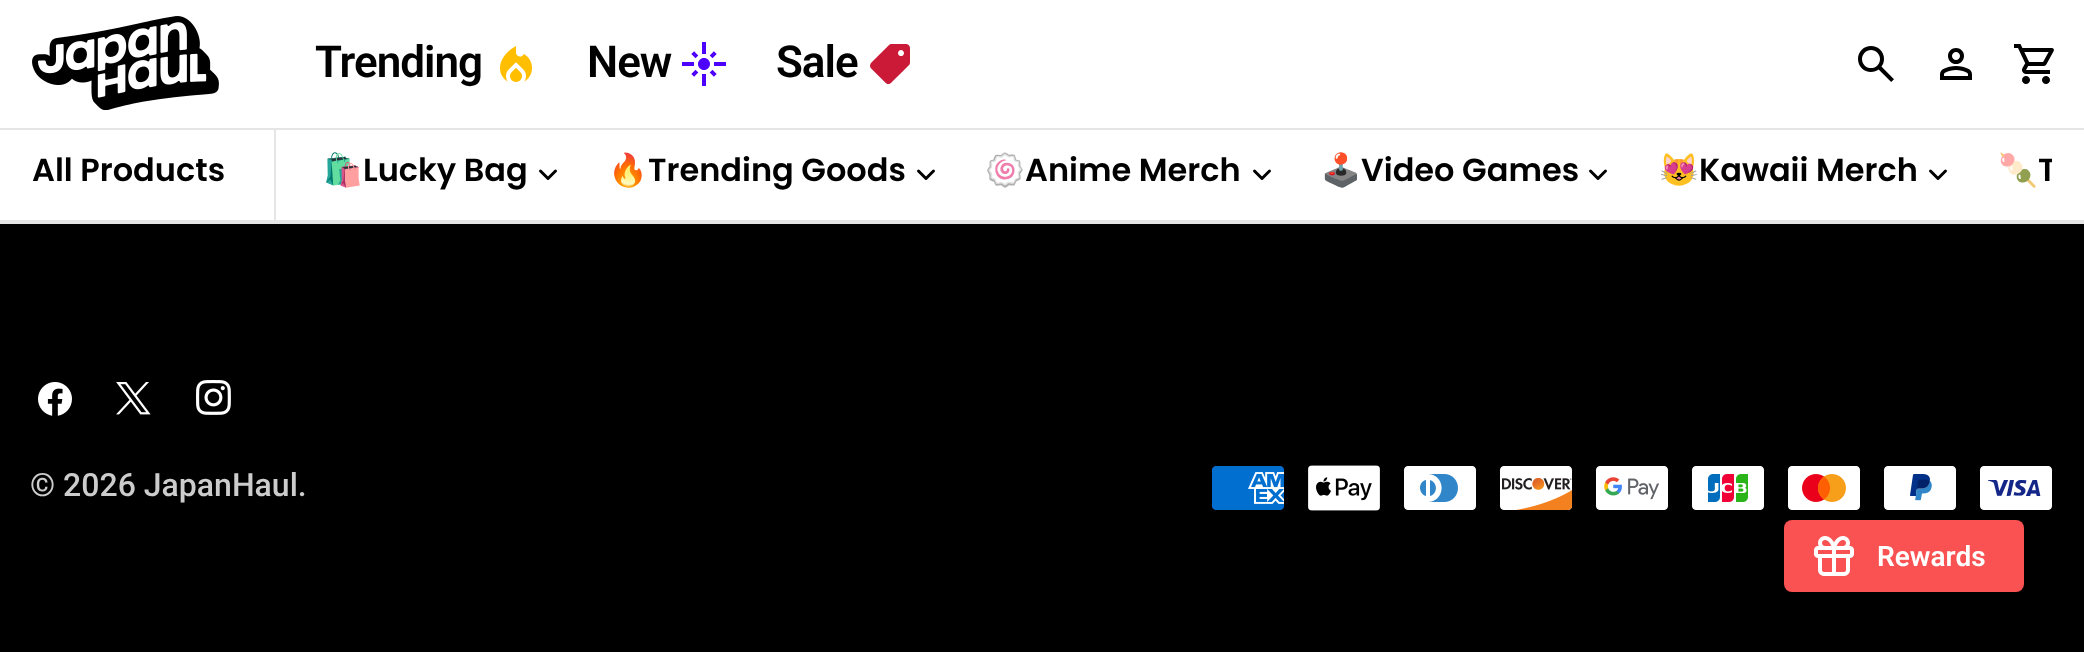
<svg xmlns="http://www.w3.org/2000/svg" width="2084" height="652">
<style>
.a{font:600 44px Roboto;letter-spacing:-1px;fill:#000}
.b{font:600 32px Poppins;fill:#000}
.c{font:bold 32px Noto Color Emoji;fill:#000}
.d{font:500 32px Roboto;fill:#ccc}
.e{font:600 28px Roboto;fill:#fff}
</style>
<defs>
<clipPath id="clip1"><path d="M32 130h2020v90H32z"/></clipPath>
</defs>
<rect width="100%" height="100%" fill="#000"/>
<path fill="#e6e6e6" d="M0 222h2084v2H0z"/>
<path fill="#fff" d="M0 0h2084v220H0z"/>
<image href="1.png" x="32" y="16" width="187" height="94"/>
<image href="2.png" x="500" y="46" width="32" height="36"/>
<image href="3.png" x="682" y="42" width="44" height="44"/>
<image href="4.png" x="870" y="44" width="40" height="40"/>
<image href="5.png" x="1858" y="46" width="36" height="36"/>
<image href="6.png" x="1940" y="48" width="32" height="32"/>
<image href="7.png" x="2014" y="44" width="40" height="40"/>
<path fill="#e5e5e5" d="M0 128h2084v2H0z"/>
<path fill="#e5e5e5" d="M0 220h2084v2H0z"/>
<path fill="#e5e5e5" d="M274 130h2v90H274z"/>
<path fill="none" stroke="#000" stroke-width="3" stroke-linecap="round" stroke-linejoin="round" d="M555.5 171l-7.5 7.5l-7.5-7.5"/>
<path fill="none" stroke="#000" stroke-width="3" stroke-linecap="round" stroke-linejoin="round" d="M933.5 171l-7.5 7.5l-7.5-7.5"/>
<path fill="none" stroke="#000" stroke-width="3" stroke-linecap="round" stroke-linejoin="round" d="M1269.5 171l-7.5 7.5l-7.5-7.5"/>
<path fill="none" stroke="#000" stroke-width="3" stroke-linecap="round" stroke-linejoin="round" d="M1605.5 171l-7.5 7.5l-7.5-7.5"/>
<path fill="none" stroke="#000" stroke-width="3" stroke-linecap="round" stroke-linejoin="round" d="M1945.5 171l-7.5 7.5l-7.5-7.5"/>
<image href="8.png" x="38" y="382" width="34" height="34"/>
<image href="9.png" x="116" y="382" width="35" height="33"/>
<image href="10.png" x="196" y="380" width="35" height="35"/>
<image href="11.png" x="1212" y="466" width="72" height="44"/>
<image href="12.png" x="1308" y="465" width="72" height="46"/>
<image href="13.png" x="1404" y="466" width="72" height="44"/>
<image href="14.png" x="1500" y="466" width="73" height="44"/>
<image href="15.png" x="1596" y="466" width="72" height="44"/>
<image href="16.png" x="1692" y="466" width="72" height="44"/>
<image href="17.png" x="1788" y="466" width="72" height="44"/>
<image href="18.png" x="1884" y="466" width="72" height="44"/>
<image href="19.png" x="1980" y="466" width="72" height="44"/>
<rect fill="#fa5252" x="1784" y="520" width="240" height="72" rx="8"/>
<image href="20.png" x="1814" y="536" width="40" height="40"/>
<text class="a" x="315" y="77">Trending</text>
<text class="a" x="587" y="77">New</text>
<text class="a" x="776" y="77">Sale</text>
<text class="b" x="32" y="181">All Products</text>
<text class="c" x="323" y="181">🛍️</text>
<text class="b" x="363" y="181">Lucky Bag</text>
<text class="c" x="608" y="181">🔥</text>
<text class="b" x="648" y="181">Trending Goods</text>
<text class="c" x="985" y="181">🍥</text>
<text class="b" x="1025" y="181">Anime Merch</text>
<text class="c" x="1321" y="181">🕹️</text>
<text class="b" x="1361" y="181">Video Games</text>
<text class="c" x="1659" y="181">😻</text>
<text class="b" x="1699" y="181">Kawaii Merch</text>
<text class="c" x="1998" y="181">🍡</text>
<g clip-path="url(#clip1)">
<text class="b" x="2038" y="181">T</text>
</g>
<text class="d" x="30" y="496">© 2026 JapanHaul.</text>
<text class="e" x="1877" y="566">Rewards</text>
</svg>
